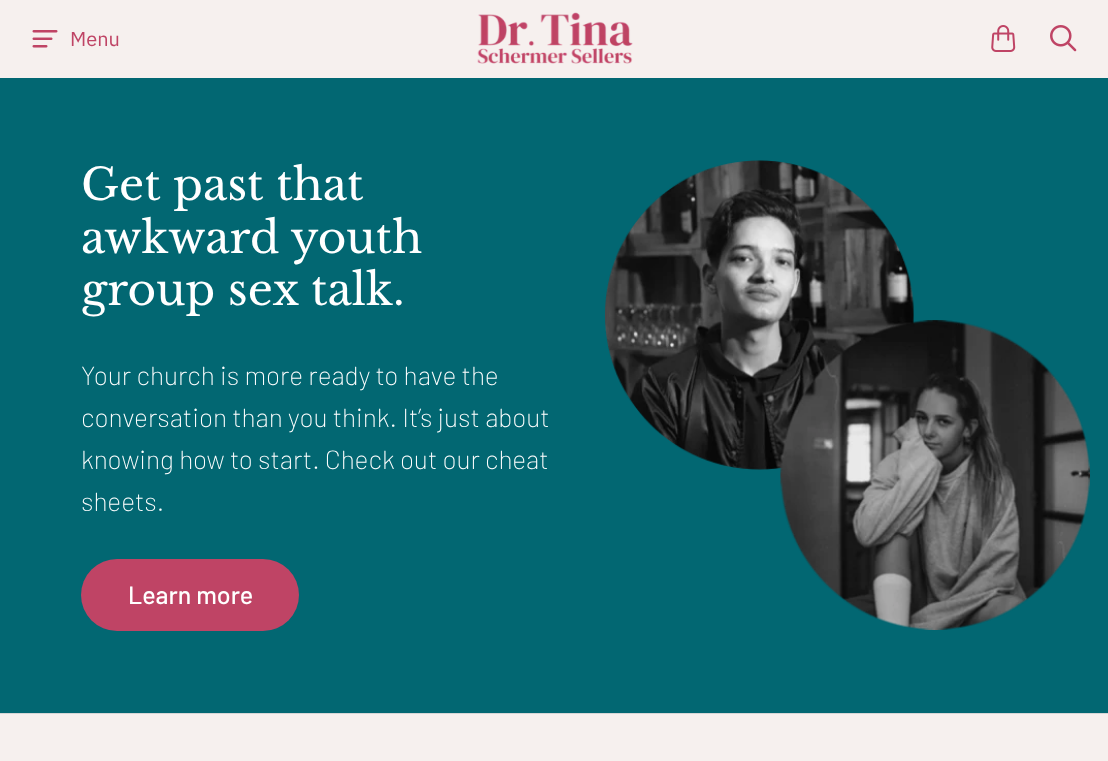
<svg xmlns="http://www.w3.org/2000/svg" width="1108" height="761">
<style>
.a{font:20px IBM Plex Sans;fill:#bf4465}
.b{font:43.75px Libre Baskerville;fill:#fff}
.c{font:200 26.25px Barlow;fill:#fff}
.d{font:500 25px Barlow;fill:#fff}
</style>
<rect width="100%" height="100%" fill="#f6f0ee"/>
<image href="1.png" x="32" y="30" width="26" height="18"/>
<image href="2.png" x="477" y="12" width="156" height="52"/>
<image href="3.png" x="991" y="25" width="25" height="27"/>
<image href="4.png" x="1050" y="25" width="27" height="27"/>
<path fill="#026772" d="M0 78h1108v635H0z"/>
<rect fill="#bf4465" x="81" y="559" width="218" height="72" rx="36"/>
<image href="5.png" x="605" y="160" width="485" height="470"/>
<path fill="#d6d6d6" d="M0 713h1108v1H0z"/>
<text class="a" x="70" y="46">Menu</text>
<text class="b" x="81" y="200">Get past that</text>
<text class="b" x="81" y="253">awkward youth</text>
<text class="b" x="81" y="305">group sex talk.</text>
<text class="c" x="81" y="385">Your church is more ready to have the</text>
<text class="c" x="81" y="427">conversation than you think. It’s just about</text>
<text class="c" x="81" y="469">knowing how to start. Check out our cheat</text>
<text class="c" x="81" y="511">sheets.</text>
<text class="d" x="128" y="604">Learn more</text>
</svg>
